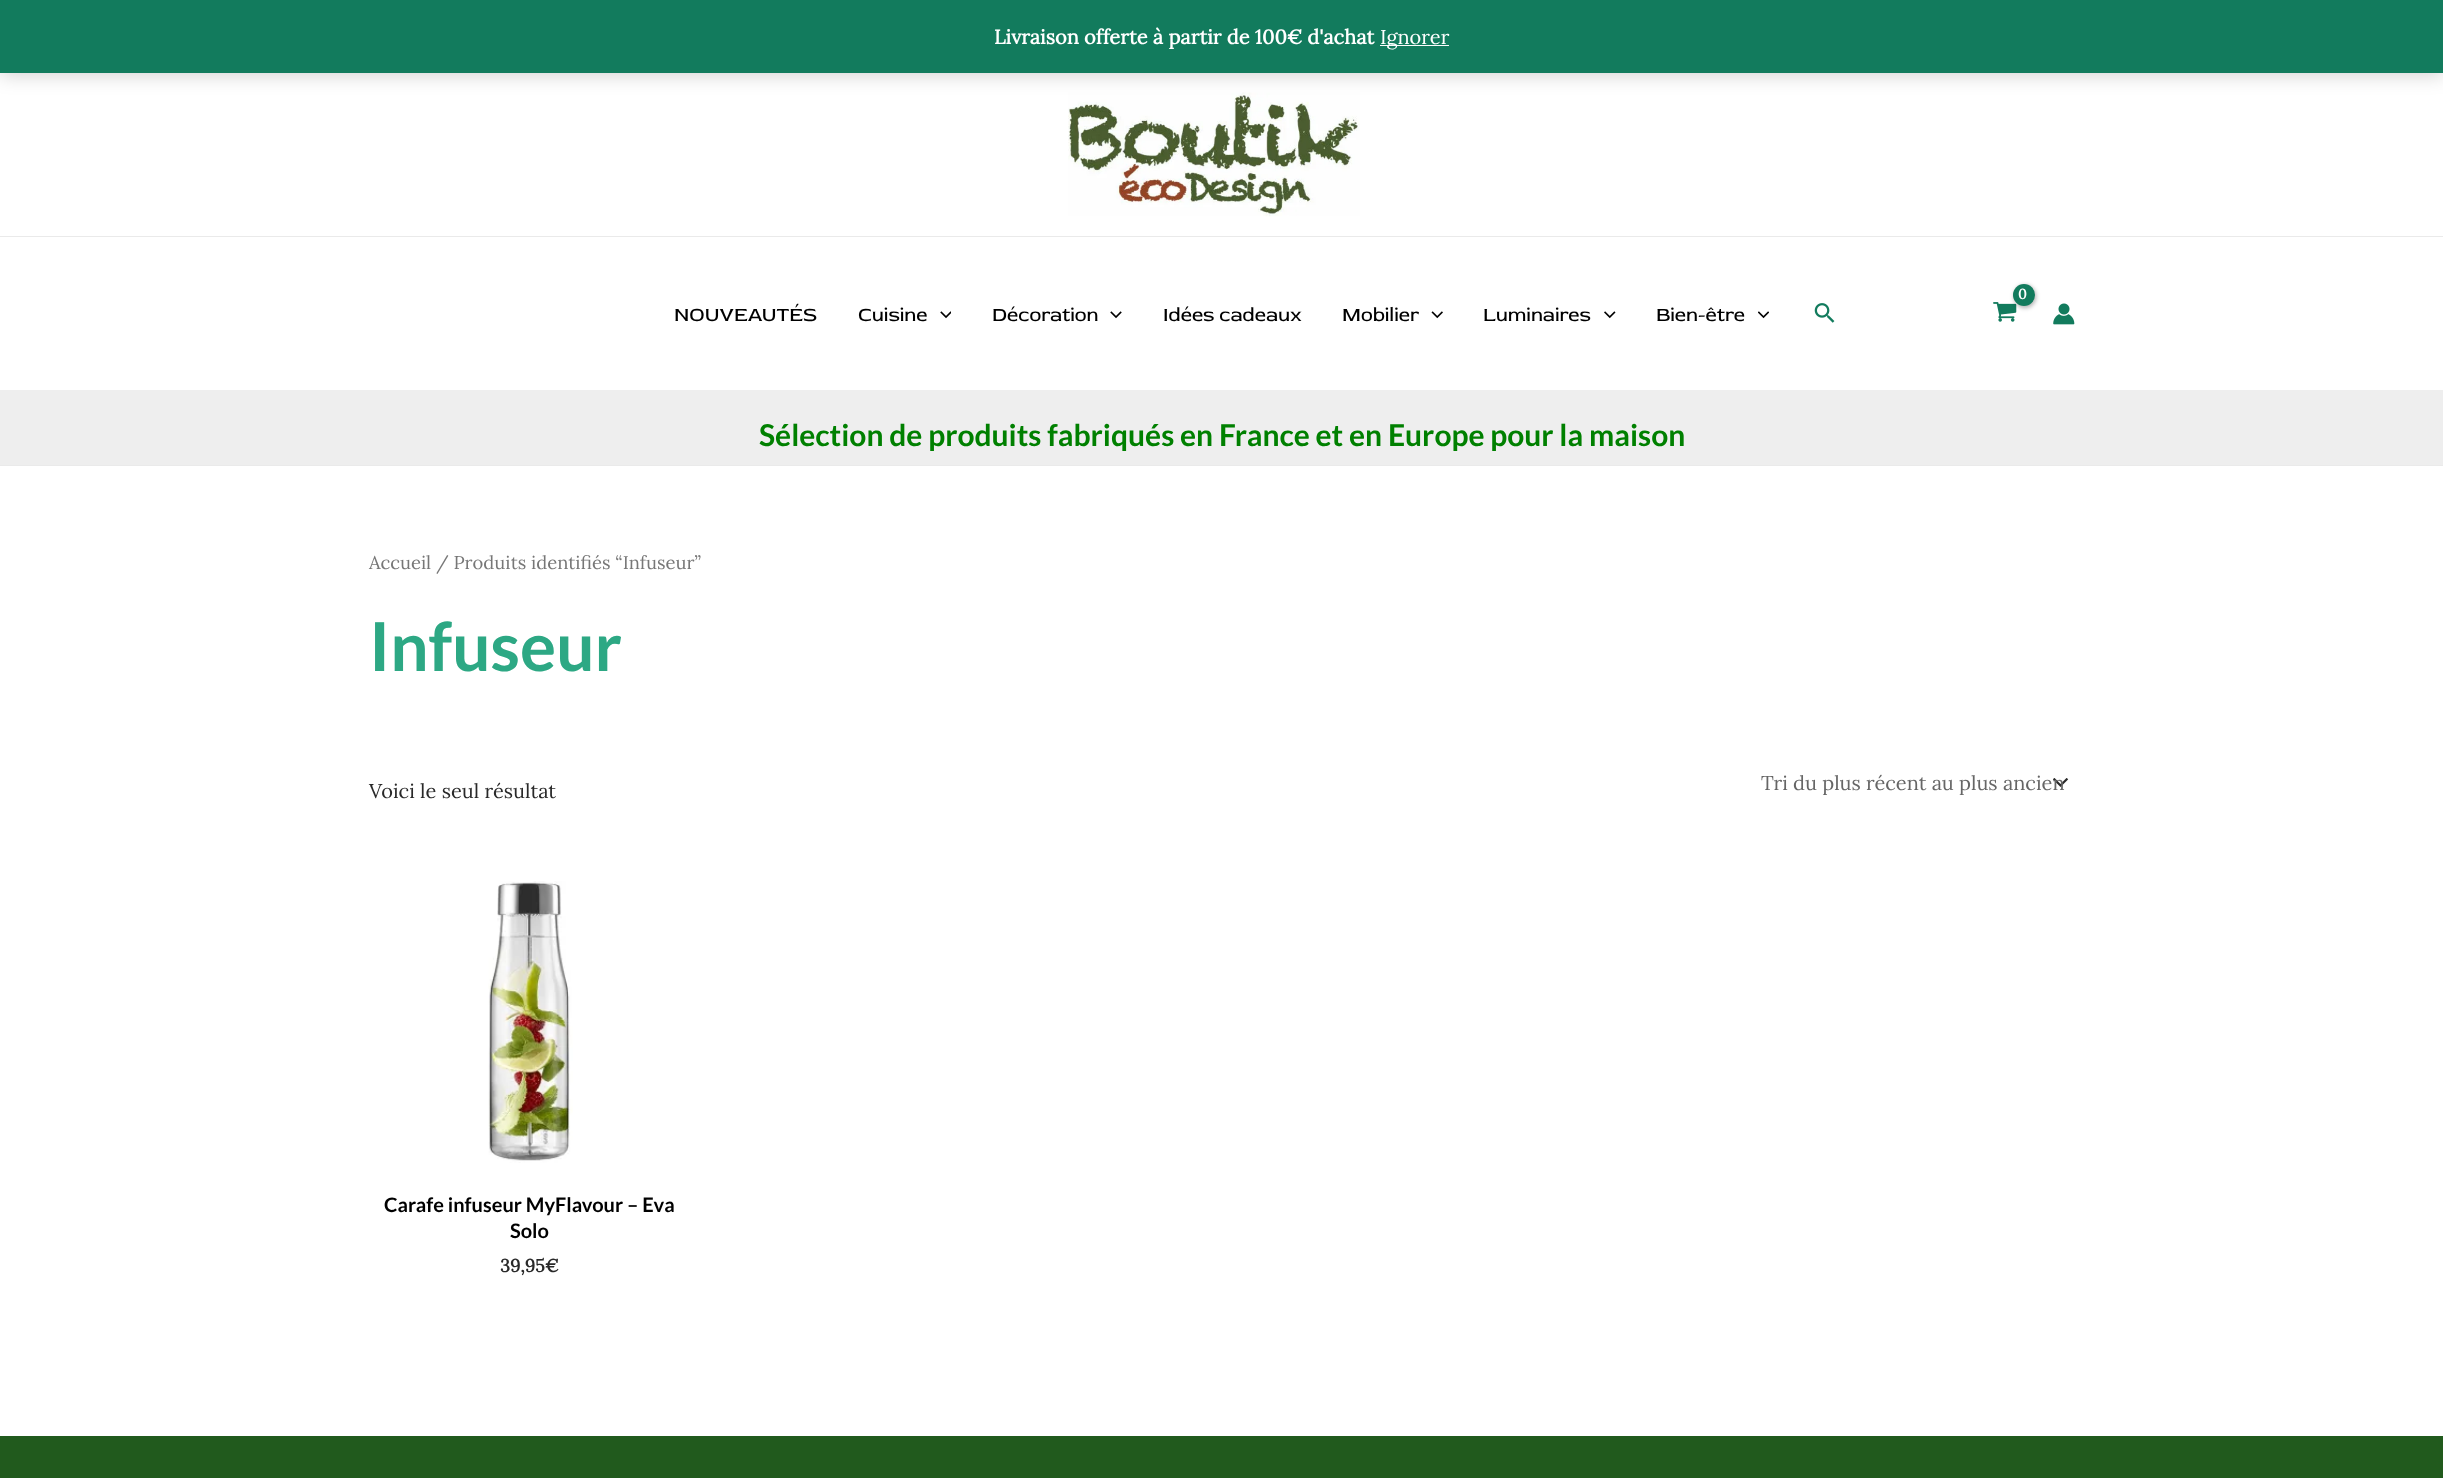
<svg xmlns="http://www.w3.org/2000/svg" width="2443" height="1478">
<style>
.a{font:bold 20px Lora;fill:#fff}
.b{font:20px Lora;fill:#fff}
.c{font:bold 14px Lora;letter-spacing:-1px;fill:#fff}
.d{font:20px Red Rose;fill:#000}
.e{font:bold 30px Lato;fill:#008000}
.f{font:18.4px Lora;fill:#777}
.g{font:bold 67.5px Lato;fill:#2da884}
.h{font:20px Lora;fill:#292929}
.i{font:20px Lora;fill:#666}
.j{font:bold 20px Lato;fill:#000}
.k{font:bold 18px Lora;fill:#292929}
</style>
<defs>
<clipPath id="clip1"><path d="M1761 770h304v25H1761z"/></clipPath>
</defs>
<rect width="100%" height="100%" fill="#fff"/>
<image href="1.png" x="1068" y="92" width="292" height="125"/>
<path fill="#00000033" filter="blur(10px)" d="M0 1h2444v73H0z"/>
<path fill="#127b5d" d="M0 0h2443v73H0z"/>
<path fill="#fbfbfb" d="M1380 45h69v1H1380z"/>
<path fill="#eaeaea" d="M0 236h2443v1H0z"/>
<image href="2.png" x="1993" y="302" width="24" height="20"/>
<rect fill="#0000004d" filter="blur(2px)" x="2014" y="285" width="22" height="23" rx="11"/>
<circle fill="#127b5d" cx="2024" cy="295" r="11"/>
<image href="3.png" x="1814" y="303" width="21" height="20"/>
<image href="4.png" x="2053" y="303" width="22" height="22"/>
<image href="5.png" x="940" y="311" width="11" height="8"/>
<image href="6.png" x="1110" y="311" width="12" height="8"/>
<image href="7.png" x="1431" y="311" width="12" height="8"/>
<image href="8.png" x="1604" y="311" width="12" height="8"/>
<image href="9.png" x="1758" y="311" width="11" height="8"/>
<path fill="#eee" d="M0 390h2443v75H0z"/>
<path fill="#eaeaea" d="M0 465h2443v1H0z"/>
<image href="10.png" x="2053" y="778" width="16" height="9"/>
<image href="11.png" x="488" y="881" width="85" height="282"/>
<path fill="#215a1d" d="M0 1436h2443v42H0z"/>
<text class="a" x="994" y="44">Livraison offerte à partir de 100€ d'achat</text>
<text class="b" x="1380" y="44">Ignorer</text>
<text class="c" x="2018" y="299">0</text>
<text class="d" x="674" y="321">NOUVEAUTÉS</text>
<text class="d" x="858" y="321">Cuisine</text>
<text class="d" x="992" y="321">Décoration</text>
<text class="d" x="1163" y="321">Idées cadeaux</text>
<text class="d" x="1342" y="321">Mobilier</text>
<text class="d" x="1483" y="321">Luminaires</text>
<text class="d" x="1656" y="321">Bien-être</text>
<text class="e" x="759" y="446">Sélection de produits fabriqués en France et en Europe pour la maison</text>
<text class="f" x="369" y="569">Accueil / Produits identifiés “Infuseur”</text>
<text class="g" x="369" y="671">Infuseur</text>
<text class="h" x="369" y="798">Voici le seul résultat</text>
<g clip-path="url(#clip1)">
<text class="i" x="1761" y="790">Tri du plus récent au plus ancien</text>
</g>
<text class="j" x="384" y="1212">Carafe infuseur MyFlavour – Eva</text>
<text class="j" x="510" y="1238">Solo</text>
<text class="k" x="500" y="1272">39,95€</text>
</svg>
